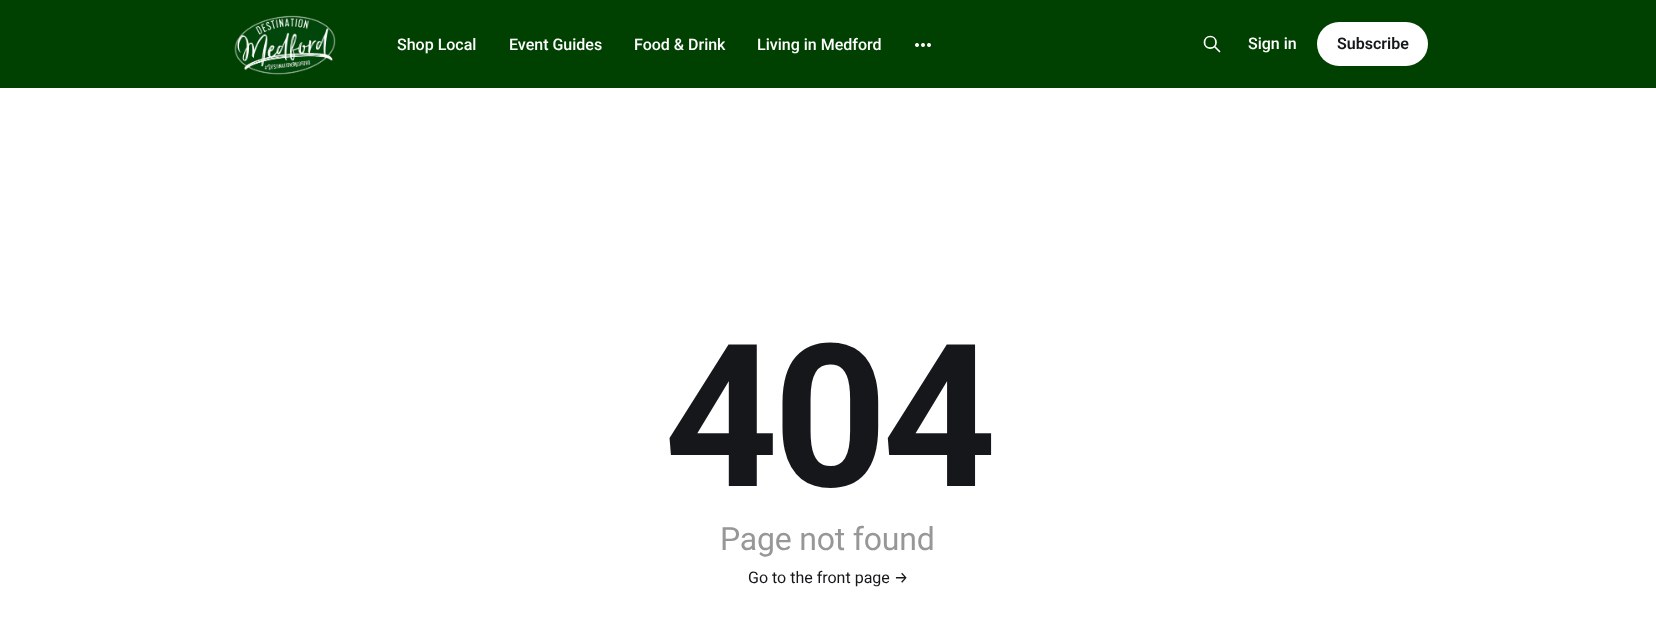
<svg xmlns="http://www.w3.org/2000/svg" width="1656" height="644">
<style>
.a{font:500 16px Roboto;fill:#fff}
.b{font:600 16px Roboto;fill:#15171a}
.c{font:bold 199px Roboto;letter-spacing:-5px;fill:#15171a}
.d{font:32px Roboto;letter-spacing:-0.2px;fill:#979797}
.e{font:16px Roboto;fill:#15171a}
.f{font:16px Fira Sans;fill:#15171a}
</style>
<rect width="100%" height="100%" fill="#fff"/>
<path fill="#004102" d="M0 0h1656v88H0z"/>
<image href="1.png" x="234" y="15" width="102" height="60"/>
<image href="2.png" x="915" y="43" width="16" height="4"/>
<path fill="none" stroke="#fff" stroke-width="1.7" stroke-linecap="round" stroke-linejoin="round" d="M1219.5 51.5l-5-5m1.5-4c0 7.5-11.5 7.5-11.5 0c0-8 11.5-8 11.5 0z"/>
<rect fill="#fff" x="1317" y="22" width="111" height="44" rx="22"/>
<text class="a" x="397" y="50">Shop Local</text>
<text class="a" x="509" y="50">Event Guides</text>
<text class="a" x="634" y="50">Food &amp; Drink</text>
<text class="a" x="757" y="50">Living in Medford</text>
<text class="a" x="1248" y="49">Sign in</text>
<text class="b" x="1337" y="49">Subscribe</text>
<text class="c" x="664" y="486">404</text>
<text class="d" x="720" y="550">Page not found</text>
<text class="e" x="748" y="583">Go to the front page</text>
<text class="f" x="894" y="583">→</text>
</svg>
